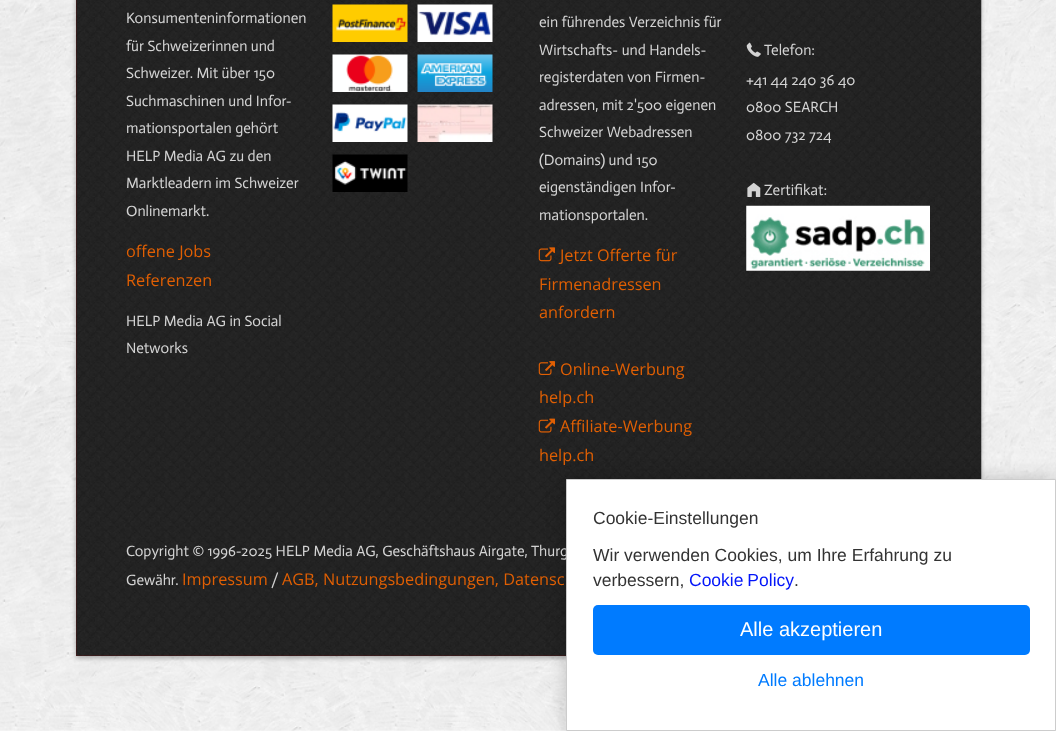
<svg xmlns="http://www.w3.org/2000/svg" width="1056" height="731">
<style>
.a{font:15px Actor;fill:#d3d3d3}
.b{font:16.25px Open Sans;fill:#e05f03}
.c{font:17.5px Liberation Sans;fill:#333}
.d{font:17.5px Liberation Sans;fill:#0315f9}
.e{font:20px Liberation Sans;fill:#fff}
.f{font:17.5px Liberation Sans;fill:#007bff}
</style>
<rect width="100%" height="100%" fill="#fff"/>
<image href="1.png" x="0" y="0" width="1056" height="731"/>
<path fill="#0000004d" filter="blur(2.5px)" d="M76 -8h905v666H76z"/>
<path fill="#7a0c0c" d="M76 0h490v656H76z"/>
<image href="2.png" x="76" y="0" width="906" height="656"/>
<image href="3.png" x="332" y="4" width="76" height="38"/>
<image href="4.png" x="417" y="4" width="76" height="38"/>
<image href="5.png" x="332" y="54" width="76" height="38"/>
<image href="6.png" x="417" y="54" width="76" height="38"/>
<image href="7.png" x="332" y="104" width="76" height="38"/>
<image href="8.png" x="417" y="104" width="76" height="38"/>
<image href="9.png" x="332" y="154" width="76" height="38"/>
<image href="10.png" x="538" y="247" width="17" height="15"/>
<image href="11.png" x="538" y="361" width="17" height="14"/>
<image href="12.png" x="538" y="418" width="17" height="15"/>
<image href="13.png" x="746" y="42" width="15" height="15"/>
<image href="14.png" x="747" y="182" width="14" height="15"/>
<image href="15.png" x="746" y="205" width="184" height="66"/>
<path fill="#00000033" filter="blur(9.5px)" d="M566 479h490v252H566z"/>
<text class="a" x="126" y="23">Konsumenteninformationen</text>
<text class="a" x="126" y="51">für Schweizerinnen und</text>
<text class="a" x="126" y="78">Schweizer. Mit über 150</text>
<text class="a" x="126" y="106">Suchmaschinen und Infor-</text>
<text class="a" x="126" y="133">mationsportalen gehört</text>
<text class="a" x="126" y="161">HELP Media AG zu den</text>
<text class="a" x="126" y="188">Marktleadern im Schweizer</text>
<text class="a" x="126" y="216">Onlinemarkt.</text>
<text class="b" x="126" y="257">offene Jobs</text>
<text class="b" x="126" y="286">Referenzen</text>
<text class="a" x="126" y="326">HELP Media AG in Social</text>
<text class="a" x="126" y="353">Networks</text>
<text class="a" x="539" y="27">ein führendes Verzeichnis für</text>
<text class="a" x="539" y="55">Wirtschafts- und Handels-</text>
<text class="a" x="539" y="82">registerdaten von Firmen-</text>
<text class="a" x="539" y="110">adressen, mit 2'500 eigenen</text>
<text class="a" x="539" y="137">Schweizer Webadressen</text>
<text class="a" x="539" y="165">(Domains) und 150</text>
<text class="a" x="539" y="192">eigenständigen Infor-</text>
<text class="a" x="539" y="220">mationsportalen.</text>
<text class="b" x="560" y="261">Jetzt Offerte für</text>
<text class="b" x="539" y="290">Firmenadressen</text>
<text class="b" x="539" y="318">anfordern</text>
<text class="b" x="560" y="375">Online-Werbung</text>
<text class="b" x="539" y="403">help.ch</text>
<text class="b" x="560" y="432">Affiliate-Werbung</text>
<text class="b" x="539" y="461">help.ch</text>
<text class="a" x="764" y="55">Telefon:</text>
<text class="a" x="746" y="85">+41 44 240 36 40</text>
<text class="a" x="746" y="112">0800 SEARCH</text>
<text class="a" x="746" y="140">0800 732 724</text>
<text class="a" x="764" y="195">Zertifikat:</text>
<text class="a" x="126" y="556">Copyright © 1996-2025 HELP Media AG, Geschäftshaus Airgate, Thurg</text>
<text class="a" x="126" y="585">Gewähr.</text>
<text class="b" x="182" y="585">Impressum</text>
<text class="a" x="271" y="585">/</text>
<text class="b" x="282" y="585">AGB, Nutzungsbedingungen, Datensc</text>
<path fill="#fff" stroke="#ccc" d="M566.5 479.5h489v251H566.5z"/>
<text class="c" x="593" y="524">Cookie-Einstellungen</text>
<text class="c" x="593" y="561">Wir verwenden Cookies, um Ihre Erfahrung zu</text>
<text class="c" x="593" y="586">verbessern,</text>
<text class="d" x="689" y="586" word-spacing="-1">Cookie Policy</text>
<text class="c" x="794" y="586">.</text>
<rect fill="#007bff" x="593" y="605" width="437" height="50" rx="5"/>
<text class="e" x="740" y="636">Alle akzeptieren</text>
<text class="f" x="758" y="686">Alle ablehnen</text>
</svg>
